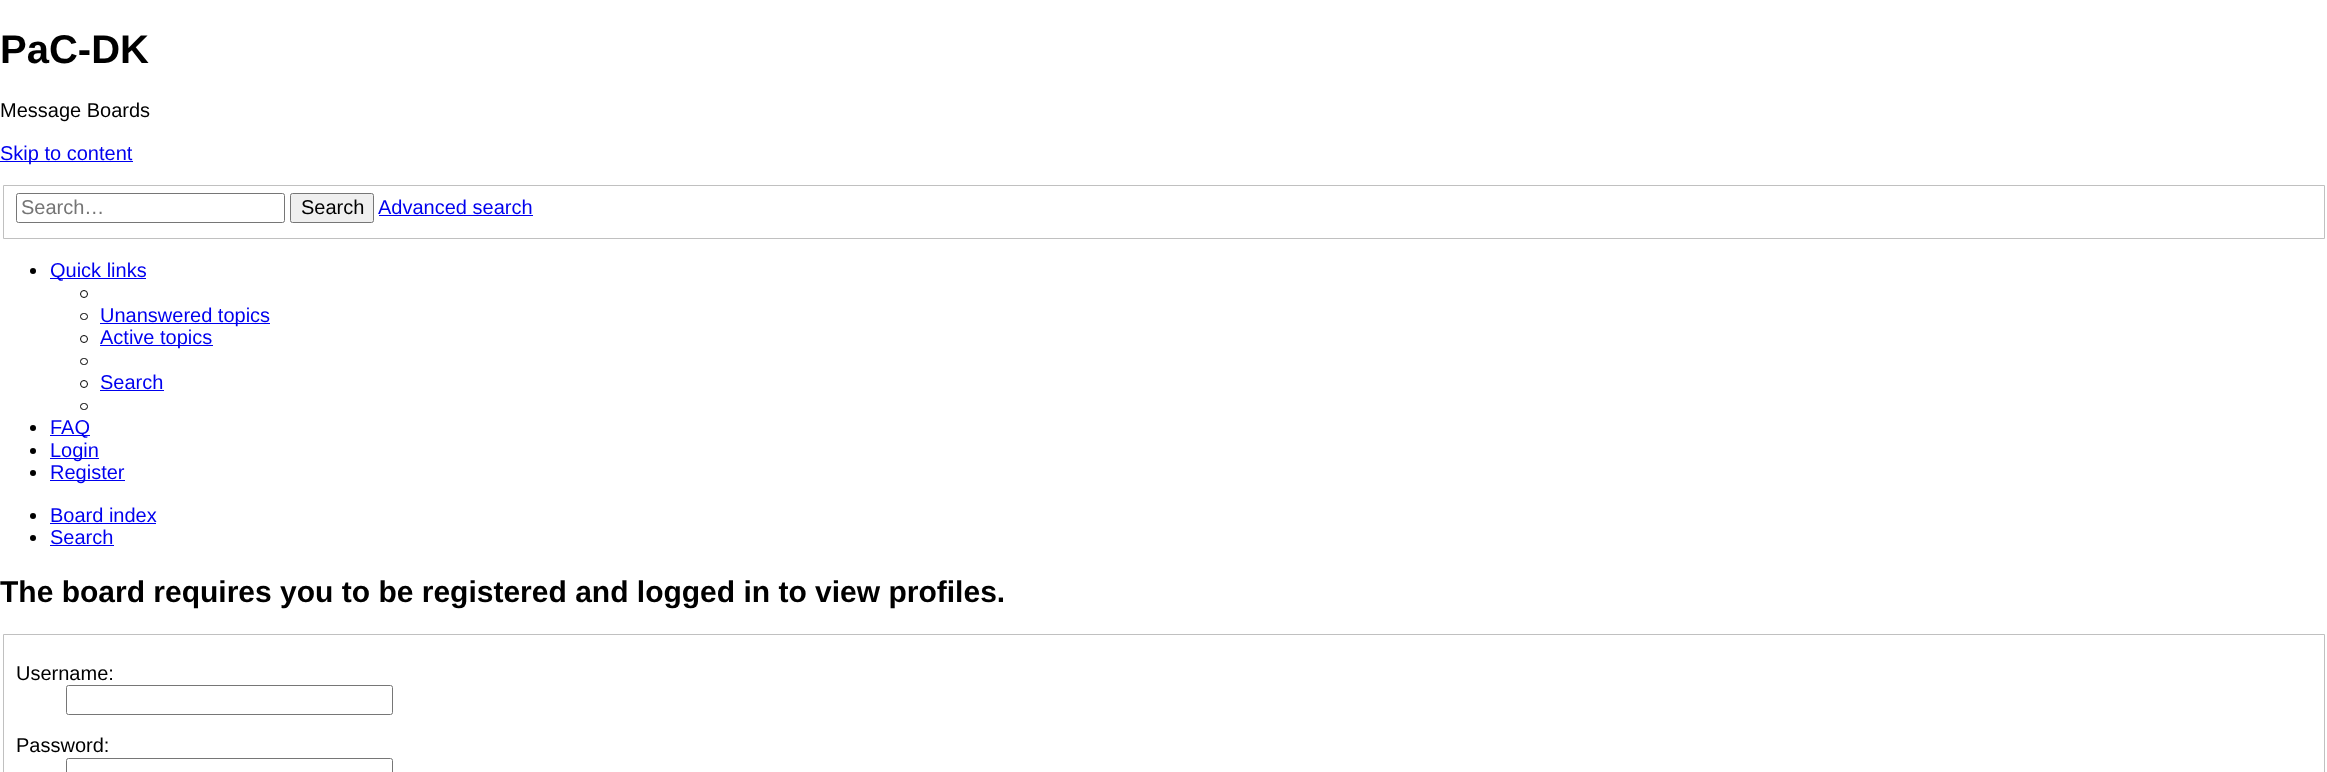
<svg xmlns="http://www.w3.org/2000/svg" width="2327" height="772">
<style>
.a{font:bold 40px Liberation Sans;fill:#000}
.b{font:20px Liberation Sans;fill:#000}
.c{font:20px Liberation Sans;fill:#00e}
.d{font:20px Liberation Sans;fill:#757575}
.e{font:bold 30px Liberation Sans;fill:#000}
</style>
<rect width="100%" height="100%" fill="#fff"/>
<path fill="#00e" d="M0 161h133v1H0z"/>
<path fill="none" stroke="#c0c0c0" d="M3.5 185.5h2321v53H3.5z"/>
<rect fill="none" stroke="#767676" x="16.5" y="193.5" width="268" height="29" rx="2"/>
<rect fill="#efefef" stroke="#767676" x="290.5" y="193.5" width="83" height="29" rx="2"/>
<path fill="#00e" d="M379 215h154v1H379z"/>
<circle fill="#000" cx="33" cy="271" r="3"/>
<path fill="#00e" d="M50 278h96v1H50z"/>
<circle fill="none" stroke="#000" cx="84" cy="294" r="3.5"/>
<rect fill="none" stroke="#000" x="80.5" y="313.5" width="7" height="6" rx="3"/>
<path fill="#00e" d="M100 323h170v1H100z"/>
<circle fill="none" stroke="#000" cx="84" cy="339" r="3.5"/>
<path fill="#00e" d="M100 345h113v1H100z"/>
<rect fill="none" stroke="#000" x="80.5" y="358.5" width="7" height="6" rx="3"/>
<circle fill="none" stroke="#000" cx="84" cy="384" r="3.5"/>
<path fill="#00e" d="M100 390h64v1H100z"/>
<rect fill="none" stroke="#000" x="80.5" y="403.5" width="7" height="6" rx="3"/>
<circle fill="#000" cx="33" cy="428" r="3"/>
<path fill="#00e" d="M50 435h40v1H50z"/>
<circle fill="#000" cx="33" cy="451" r="3"/>
<path fill="#00e" d="M50 458h49v1H50z"/>
<circle fill="#000" cx="33" cy="473" r="3"/>
<path fill="#00e" d="M50 480h75v1H50z"/>
<circle fill="#000" cx="33" cy="516" r="3"/>
<path fill="#00e" d="M50 523h106v1H50z"/>
<circle fill="#000" cx="33" cy="538" r="3"/>
<path fill="#00e" d="M50 545h64v1H50z"/>
<path fill="none" stroke="#c0c0c0" d="M3.5 634.5h2321v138H3.5z"/>
<rect fill="none" stroke="#767676" x="66.5" y="685.5" width="326" height="29" rx="2"/>
<rect fill="none" stroke="#767676" x="66.5" y="758.5" width="326" height="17" rx="2"/>
<text class="a" x="0" y="63">PaC-DK</text>
<text class="b" x="0" y="117">Message Boards</text>
<text class="c" x="0" y="160">Skip to content</text>
<text class="d" x="21" y="214">Search…</text>
<text class="b" x="301" y="214">Search</text>
<text class="c" x="378" y="214">Advanced search</text>
<text class="c" x="50" y="277">Quick links</text>
<text class="c" x="100" y="322">Unanswered topics</text>
<text class="c" x="100" y="344">Active topics</text>
<text class="c" x="100" y="389">Search</text>
<text class="c" x="50" y="434">FAQ</text>
<text class="c" x="50" y="457">Login</text>
<text class="c" x="50" y="479">Register</text>
<text class="c" x="50" y="522">Board index</text>
<text class="c" x="50" y="544">Search</text>
<text class="e" x="0" y="602">The board requires you to be registered and logged in to view profiles.</text>
<text class="b" x="16" y="680">Username:</text>
<text class="b" x="16" y="752">Password:</text>
</svg>
